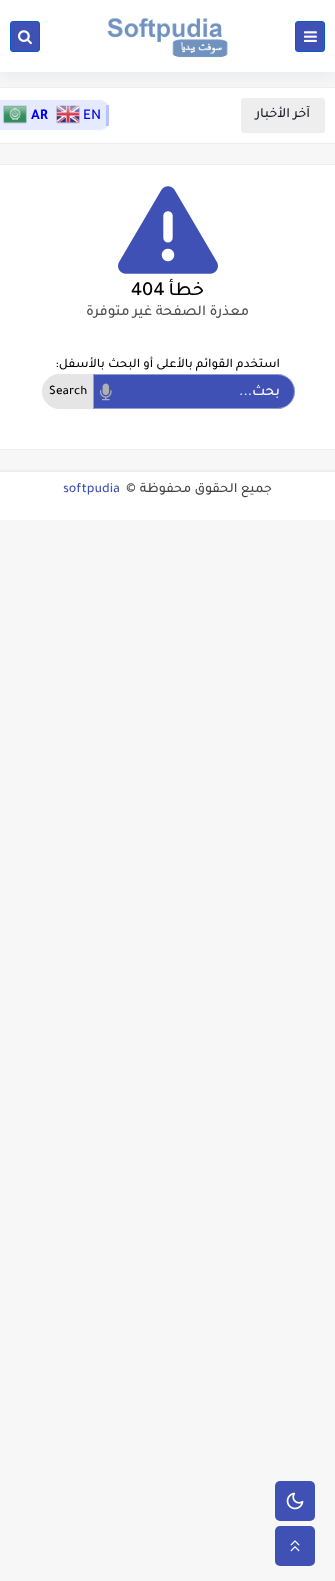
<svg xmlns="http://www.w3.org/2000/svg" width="335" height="1581">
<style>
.a{font:500 14px Tajawal;direction:rtl;fill:#171921}
.b{font:500 15px Tajawal;fill:#00e}
.c{font:bold 15px Tajawal;fill:#00e}
.d{font:500 20px Tajawal;direction:rtl;fill:#000}
.e{font:500 20px Tajawal;fill:#000}
.f{font:500 15px Tajawal;direction:rtl;fill:#4e4e4e}
.g{font:500 13px Tajawal;direction:rtl;fill:#000}
.h{font:500 15px Tajawal;direction:rtl;fill:#fff}
.i{font:500 13px Tajawal;fill:#000}
.j{font:500 14px Tajawal;direction:rtl;fill:#444}
.k{font:500 14px Tajawal;fill:#444}
.l{font:500 14px Tajawal;fill:#3f51b5}
</style>
<rect width="100%" height="100%" fill="#f7f7f7"/>
<path fill="#fff" d="M0 88h335v55H0z"/>
<path fill="#eee" d="M0 87h335v1H0z"/>
<rect fill="#eee" x="241" y="98" width="84" height="35" rx="3"/>
<path fill="#09204c0d" filter="blur(7px)" d="M0 6h335v72H0z"/>
<path fill="#fff" d="M0 0h335v72H0z"/>
<rect fill="#3f51b5" stroke="#035dcd" x="295.5" y="21.5" width="29" height="30" rx="2.5"/>
<image href="1.png" x="304" y="31" width="13" height="11"/>
<image href="2.png" x="107" y="17" width="121" height="41"/>
<rect fill="#3f51b5" stroke="#035dcd" x="10.5" y="21.5" width="29" height="30" rx="2.5"/>
<image href="3.png" x="18" y="30" width="14" height="15"/>
<path fill="#eee" d="M0 143h335v1H0z"/>
<path fill="#e6eaff" d="M0 100h100c5 0 9 4 9 9v12c0 5-4 9-9 9h-100z"/>
<path fill="#5e76ff57" d="M106 105h3v21H106z"/>
<image href="4.png" x="56" y="105" width="24" height="19"/>
<image href="5.png" x="3" y="105" width="24" height="19"/>
<path fill="#fff" d="M0 165h335v284H0z"/>
<path fill="#eee" d="M0 164h335v1H0z"/>
<path fill="#eee" d="M0 449h335v1H0z"/>
<image href="6.png" x="118" y="186" width="100" height="88"/>
<path fill="#3f51b5" d="M93 374h184.5c9.5 0 17.5 8 17.5 17.5c0 9.5-8 17.5-17.5 17.5h-184.5z"/>
<path fill="none" stroke="#ffffff70" d="M93.5 374.5h184c9.5 0 17 7.5 17 17c0 9.5-7.5 17-17 17h-184z"/>
<image href="7.png" x="100" y="383" width="12" height="18"/>
<path fill="#e5e5e5" stroke="#e5e5e5" d="M59.5 374.5h33v34h-33c-9.5 0-17-7.5-17-17c0-9.5 7.5-17 17-17z"/>
<path fill="#fff" d="M0 472h335v48H0z"/>
<path fill="#eee" d="M0 470h335v2H0z"/>
<rect fill="#3f51b5" x="275" y="1481" width="40" height="40" rx="5"/>
<image href="8.png" x="286" y="1492" width="18" height="18"/>
<rect fill="#3f51b5" x="275" y="1526" width="40" height="40" rx="5"/>
<image href="9.png" x="290" y="1540" width="10" height="12"/>
<text class="a" x="310" y="117">آخر الأخبار</text>
<text class="b" x="83" y="119">EN</text>
<text class="c" x="31" y="119">AR</text>
<text class="d" x="204" y="295">خطأ</text>
<text class="e" x="131" y="295">404</text>
<text class="f" x="249" y="315">معذرة الصفحة غير متوفرة</text>
<text class="g" x="280" y="367">استخدم القوائم بالأعلى أو البحث بالأسفل:</text>
<text class="h" x="280" y="395">بحث...</text>
<text class="i" x="49" y="394">Search</text>
<text class="j" x="272" y="492">جميع الحقوق محفوظة</text>
<text class="k" x="126" y="492">©</text>
<text class="l" x="63" y="492">softpudia</text>
</svg>
